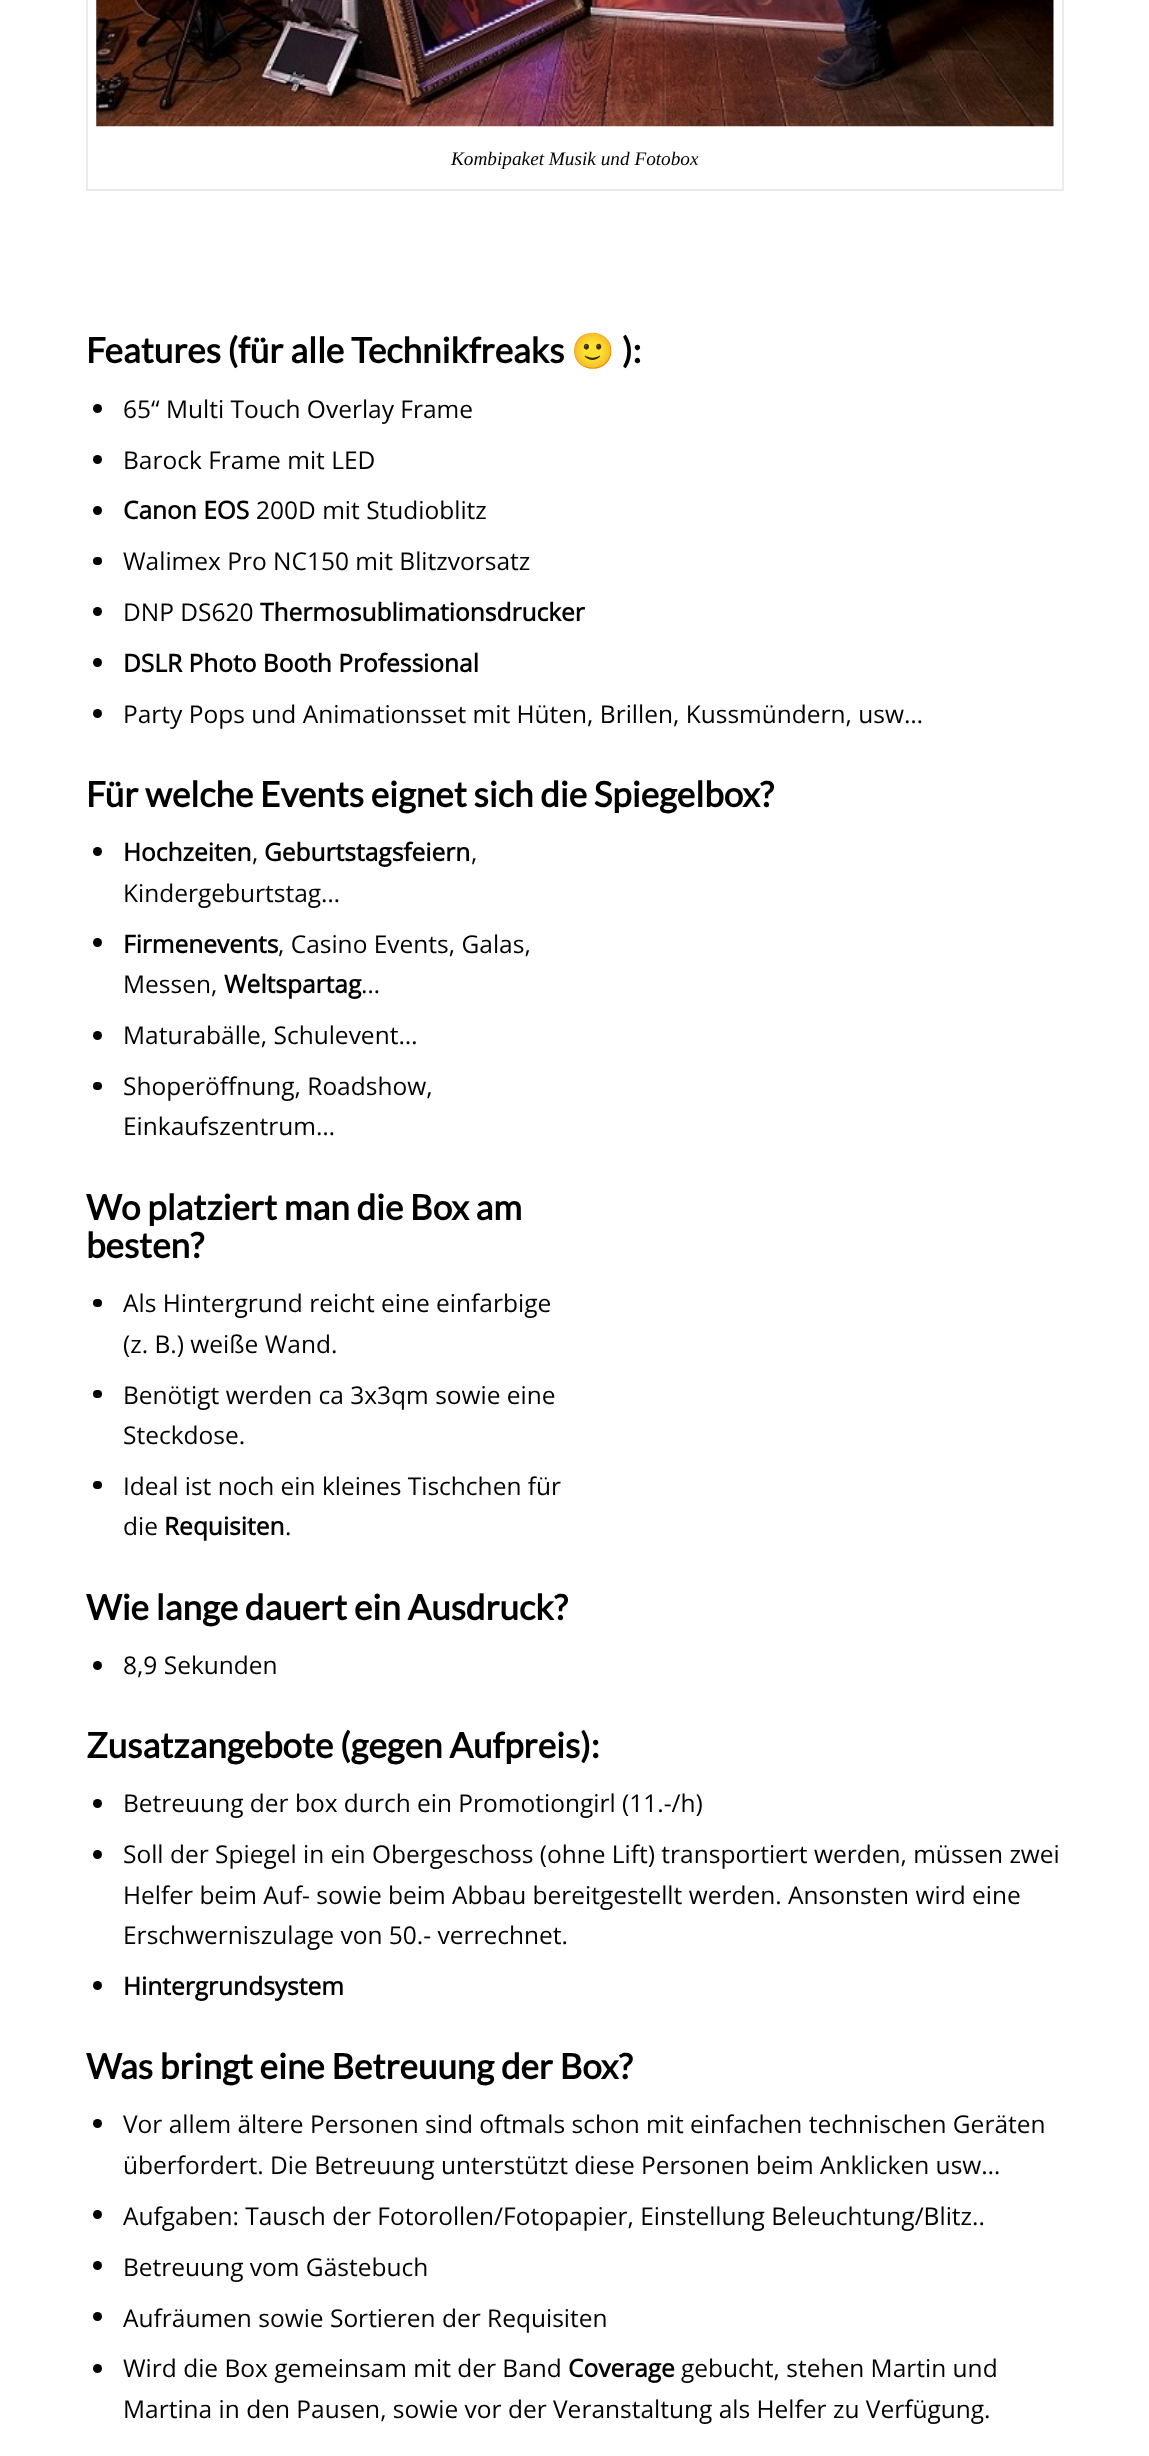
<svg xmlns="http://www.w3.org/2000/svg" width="1149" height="2456">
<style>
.a{font:italic 19.25px Liberation Serif;fill:#000}
.b{font:bold 35px Lato;fill:#000}
.c{font:bold 35px Noto Color Emoji;fill:#000}
.d{font:24.5px Open Sans;fill:#000}
.e{font:bold 24.5px Open Sans;fill:#000}
</style>
<rect width="100%" height="100%" fill="#fff"/>
<path fill="none" stroke="#ebebeb" stroke-width="2" d="M87 -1h976v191H87z"/>
<image href="1.png" x="96" y="0" width="958" height="127"/>
<circle fill="#000" cx="97.5" cy="408.5" r="4.5"/>
<circle fill="#000" cx="97.5" cy="459.5" r="4.5"/>
<circle fill="#000" cx="97.5" cy="510.5" r="4.5"/>
<rect fill="#000" x="93" y="557" width="9" height="8" rx="4"/>
<circle fill="#000" cx="97.5" cy="611.5" r="4.5"/>
<circle fill="#000" cx="97.5" cy="662.5" r="4.5"/>
<circle fill="#000" cx="97.5" cy="713.5" r="4.5"/>
<circle fill="#000" cx="97.5" cy="851.5" r="4.5"/>
<circle fill="#000" cx="97.5" cy="942.5" r="4.5"/>
<circle fill="#000" cx="97.5" cy="1035.5" r="4.5"/>
<rect fill="#000" x="93" y="1082" width="9" height="8" rx="4"/>
<rect fill="#000" x="93" y="1299" width="9" height="8" rx="4"/>
<rect fill="#000" x="93" y="1390" width="9" height="8" rx="4"/>
<rect fill="#000" x="93" y="1481" width="9" height="8" rx="4"/>
<circle fill="#000" cx="97.5" cy="1665.5" r="4.5"/>
<circle fill="#000" cx="97.5" cy="1803.5" r="4.5"/>
<circle fill="#000" cx="97.5" cy="1854.5" r="4.5"/>
<circle fill="#000" cx="97.5" cy="1985.5" r="4.5"/>
<circle fill="#000" cx="97.5" cy="2123.5" r="4.5"/>
<circle fill="#000" cx="97.5" cy="2214.5" r="4.5"/>
<circle fill="#000" cx="97.5" cy="2265.5" r="4.5"/>
<circle fill="#000" cx="97.5" cy="2316.5" r="4.5"/>
<circle fill="#000" cx="97.5" cy="2368.5" r="4.5"/>
<text class="a" x="451" y="165">Kombipaket Musik und Fotobox</text>
<text class="b" x="86" y="363">Features (für alle Technikfreaks</text>
<text class="c" x="571" y="363">🙂</text>
<text class="b" x="622" y="363">):</text>
<text class="d" x="123" y="418">65“ Multi Touch Overlay Frame</text>
<text class="d" x="123" y="469">Barock Frame mit LED</text>
<text class="e" x="123" y="519">Canon EOS</text>
<text class="d" x="256" y="519">200D mit Studioblitz</text>
<text class="d" x="123" y="570">Walimex Pro NC150 mit Blitzvorsatz</text>
<text class="d" x="123" y="621">DNP DS620</text>
<text class="e" x="260" y="621">Thermosublimationsdrucker</text>
<text class="e" x="123" y="672">DSLR Photo Booth Professional</text>
<text class="d" x="123" y="723">Party Pops und Animationsset mit Hüten, Brillen, Kussmündern, usw…</text>
<text class="b" x="86" y="807">Für welche Events eignet sich die Spiegelbox?</text>
<text class="e" x="123" y="861">Hochzeiten</text>
<text class="e" x="264" y="861">Geburtstagsfeiern</text>
<text class="d" x="252" y="861">,</text>
<text class="d" x="471" y="861">,</text>
<text class="d" x="123" y="902">Kindergeburtstag…</text>
<text class="e" x="123" y="953">Firmenevents</text>
<text class="d" x="278" y="953">, Casino Events, Galas,</text>
<text class="d" x="123" y="993">Messen,</text>
<text class="e" x="224" y="993">Weltspartag</text>
<text class="d" x="361" y="993">…</text>
<text class="d" x="123" y="1044">Maturabälle, Schulevent…</text>
<text class="d" x="123" y="1095">Shoperöffnung, Roadshow,</text>
<text class="d" x="123" y="1135">Einkaufszentrum…</text>
<text class="b" x="86" y="1220">Wo platziert man die Box am</text>
<text class="b" x="86" y="1258">besten?</text>
<text class="d" x="123" y="1312">Als Hintergrund reicht eine einfarbige</text>
<text class="d" x="123" y="1353">(z. B.) weiße Wand.</text>
<text class="d" x="123" y="1404">Benötigt werden ca 3x3qm sowie eine</text>
<text class="d" x="123" y="1444">Steckdose.</text>
<text class="d" x="123" y="1495">Ideal ist noch ein kleines Tischchen für</text>
<text class="d" x="123" y="1535">die</text>
<text class="e" x="164" y="1535">Requisiten</text>
<text class="d" x="285" y="1535">.</text>
<text class="b" x="86" y="1620">Wie lange dauert ein Ausdruck?</text>
<text class="d" x="123" y="1674">8,9 Sekunden</text>
<text class="b" x="86" y="1758">Zusatzangebote (gegen Aufpreis):</text>
<text class="d" x="123" y="1812">Betreuung der box durch ein Promotiongirl (11.-/h)</text>
<text class="d" x="123" y="1863">Soll der Spiegel in ein Obergeschoss (ohne Lift) transportiert werden, müssen zwei</text>
<text class="d" x="123" y="1904">Helfer beim Auf- sowie beim Abbau bereitgestellt werden. Ansonsten wird eine</text>
<text class="d" x="123" y="1944">Erschwerniszulage von 50.- verrechnet.</text>
<text class="e" x="123" y="1995">Hintergrundsystem</text>
<text class="b" x="86" y="2079">Was bringt eine Betreuung der Box?</text>
<text class="d" x="123" y="2133">Vor allem ältere Personen sind oftmals schon mit einfachen technischen Geräten</text>
<text class="d" x="123" y="2174">überfordert. Die Betreuung unterstützt diese Personen beim Anklicken usw…</text>
<text class="d" x="123" y="2225">Aufgaben: Tausch der Fotorollen/Fotopapier, Einstellung Beleuchtung/Blitz..</text>
<text class="d" x="123" y="2276">Betreuung vom Gästebuch</text>
<text class="d" x="123" y="2327">Aufräumen sowie Sortieren der Requisiten</text>
<text class="d" x="123" y="2377">Wird die Box gemeinsam mit der Band</text>
<text class="e" x="568" y="2377">Coverage</text>
<text class="d" x="681" y="2377">gebucht, stehen Martin und</text>
<text class="d" x="123" y="2418">Martina in den Pausen, sowie vor der Veranstaltung als Helfer zu Verfügung.</text>
</svg>
